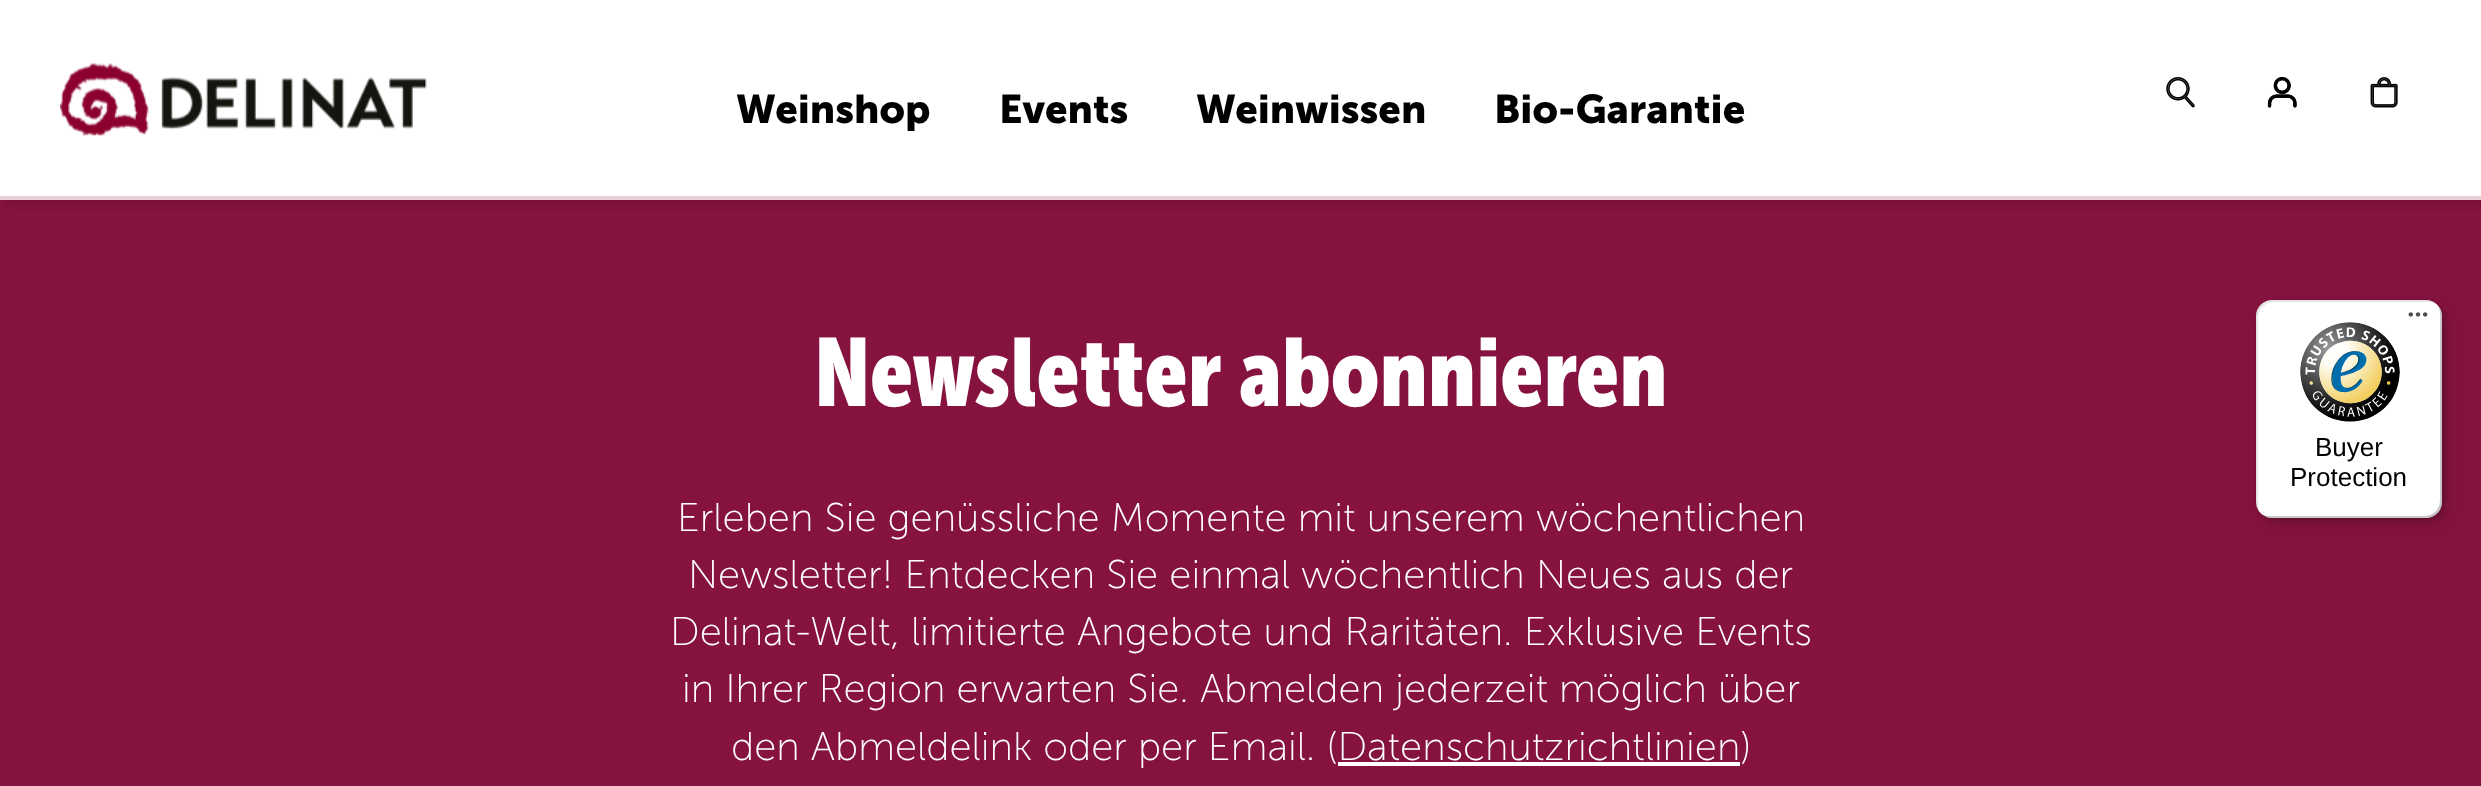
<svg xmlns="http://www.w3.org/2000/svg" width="2481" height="786">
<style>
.a{font:bold 40px Museo Sans;fill:#000}
.b{font:bold 96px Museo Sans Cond;fill:#fff}
.c{font:200 40px Museo Sans;fill:#fff}
.d{font:26px Liberation Sans;fill:#000}
</style>
<defs>
<clipPath id="clip1"><path d="M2 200h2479v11H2z"/></clipPath>
</defs>
<rect width="100%" height="100%" fill="#fff"/>
<path fill="#86133f" d="M0 200h2481v586H0z"/>
<path fill="#e7d0d9" d="M0 196h2481v4H0z"/>
<g clip-path="url(#clip1)">
<path fill="#0000001a" filter="blur(6px)" d="M6 -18h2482v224H6z"/>
</g>
<image href="1.png" x="60" y="63" width="367" height="73"/>
<image href="2.png" x="2166" y="77" width="29" height="31"/>
<image href="3.png" x="2267" y="77" width="30" height="31"/>
<image href="4.png" x="2370" y="77" width="28" height="31"/>
<path fill="#fff" d="M1338 762h402v4H1338z"/>
<rect fill="#00000026" filter="blur(8px)" x="2262" y="306" width="186" height="218" rx="16"/>
<rect fill="#00000026" filter="blur(2px)" x="2258" y="302" width="186" height="218" rx="16"/>
<rect fill="#fff" x="2256" y="300" width="186" height="218" rx="16"/>
<path fill="#0000001a" d="M2274 302h154c4 0 7 1 10 3c-3-3-7-5-12-5h-154c-9 0-16 7-16 16v186c0 5 2 9 5 12c-2-3-3-6-3-10v-186c0-9 7-16 16-16z"/>
<path fill="#00000033" d="M2260 513c3 3 7 5 12 5h154c9 0 16-7 16-16v-186c0-5-2-9-5-12c2 3 3 6 3 10v186c0 9-7 16-16 16h-154c-4 0-7-1-10-3z"/>
<path fill="#32323233" d="M2261 513c3 3 7 5 11 5h154c9 0 16-7 16-16v-186c0-4-2-8-5-11c3 3 4 6 4 10v186c0 9-7 16-16 16h-154c-4 0-7-1-10-4z"/>
<path fill="#ffffff4d" d="M2261 513c3 3 7 5 11 5h154c9 0 16-7 16-16v-186c0-4-2-8-5-11c3 3 4 6 4 10v186c0 9-7 16-16 16h-154c-4 0-7-1-10-4z"/>
<image href="5.png" x="2408" y="312" width="20" height="5"/>
<image href="6.png" x="2300" y="322" width="100" height="100"/>
<text class="a" x="736" y="123">Weinshop</text>
<text class="a" x="999" y="123">Events</text>
<text class="a" x="1196" y="123">Weinwissen</text>
<text class="a" x="1494" y="123">Bio-Garantie</text>
<text class="b" x="814" y="406">Newsletter abonnieren</text>
<text class="c" x="677" y="531">Erleben Sie genüssliche Momente mit unserem wöchentlichen</text>
<text class="c" x="688" y="588">Newsletter! Entdecken Sie einmal wöchentlich Neues aus der</text>
<text class="c" x="670" y="645">Delinat-Welt, limitierte Angebote und Raritäten. Exklusive Events</text>
<text class="c" x="682" y="702">in Ihrer Region erwarten Sie. Abmelden jederzeit möglich über</text>
<text class="c" x="731" y="760">den Abmeldelink oder per Email. (Datenschutzrichtlinien)</text>
<text class="d" x="2315" y="456">Buyer</text>
<text class="d" x="2290" y="486">Protection</text>
</svg>
